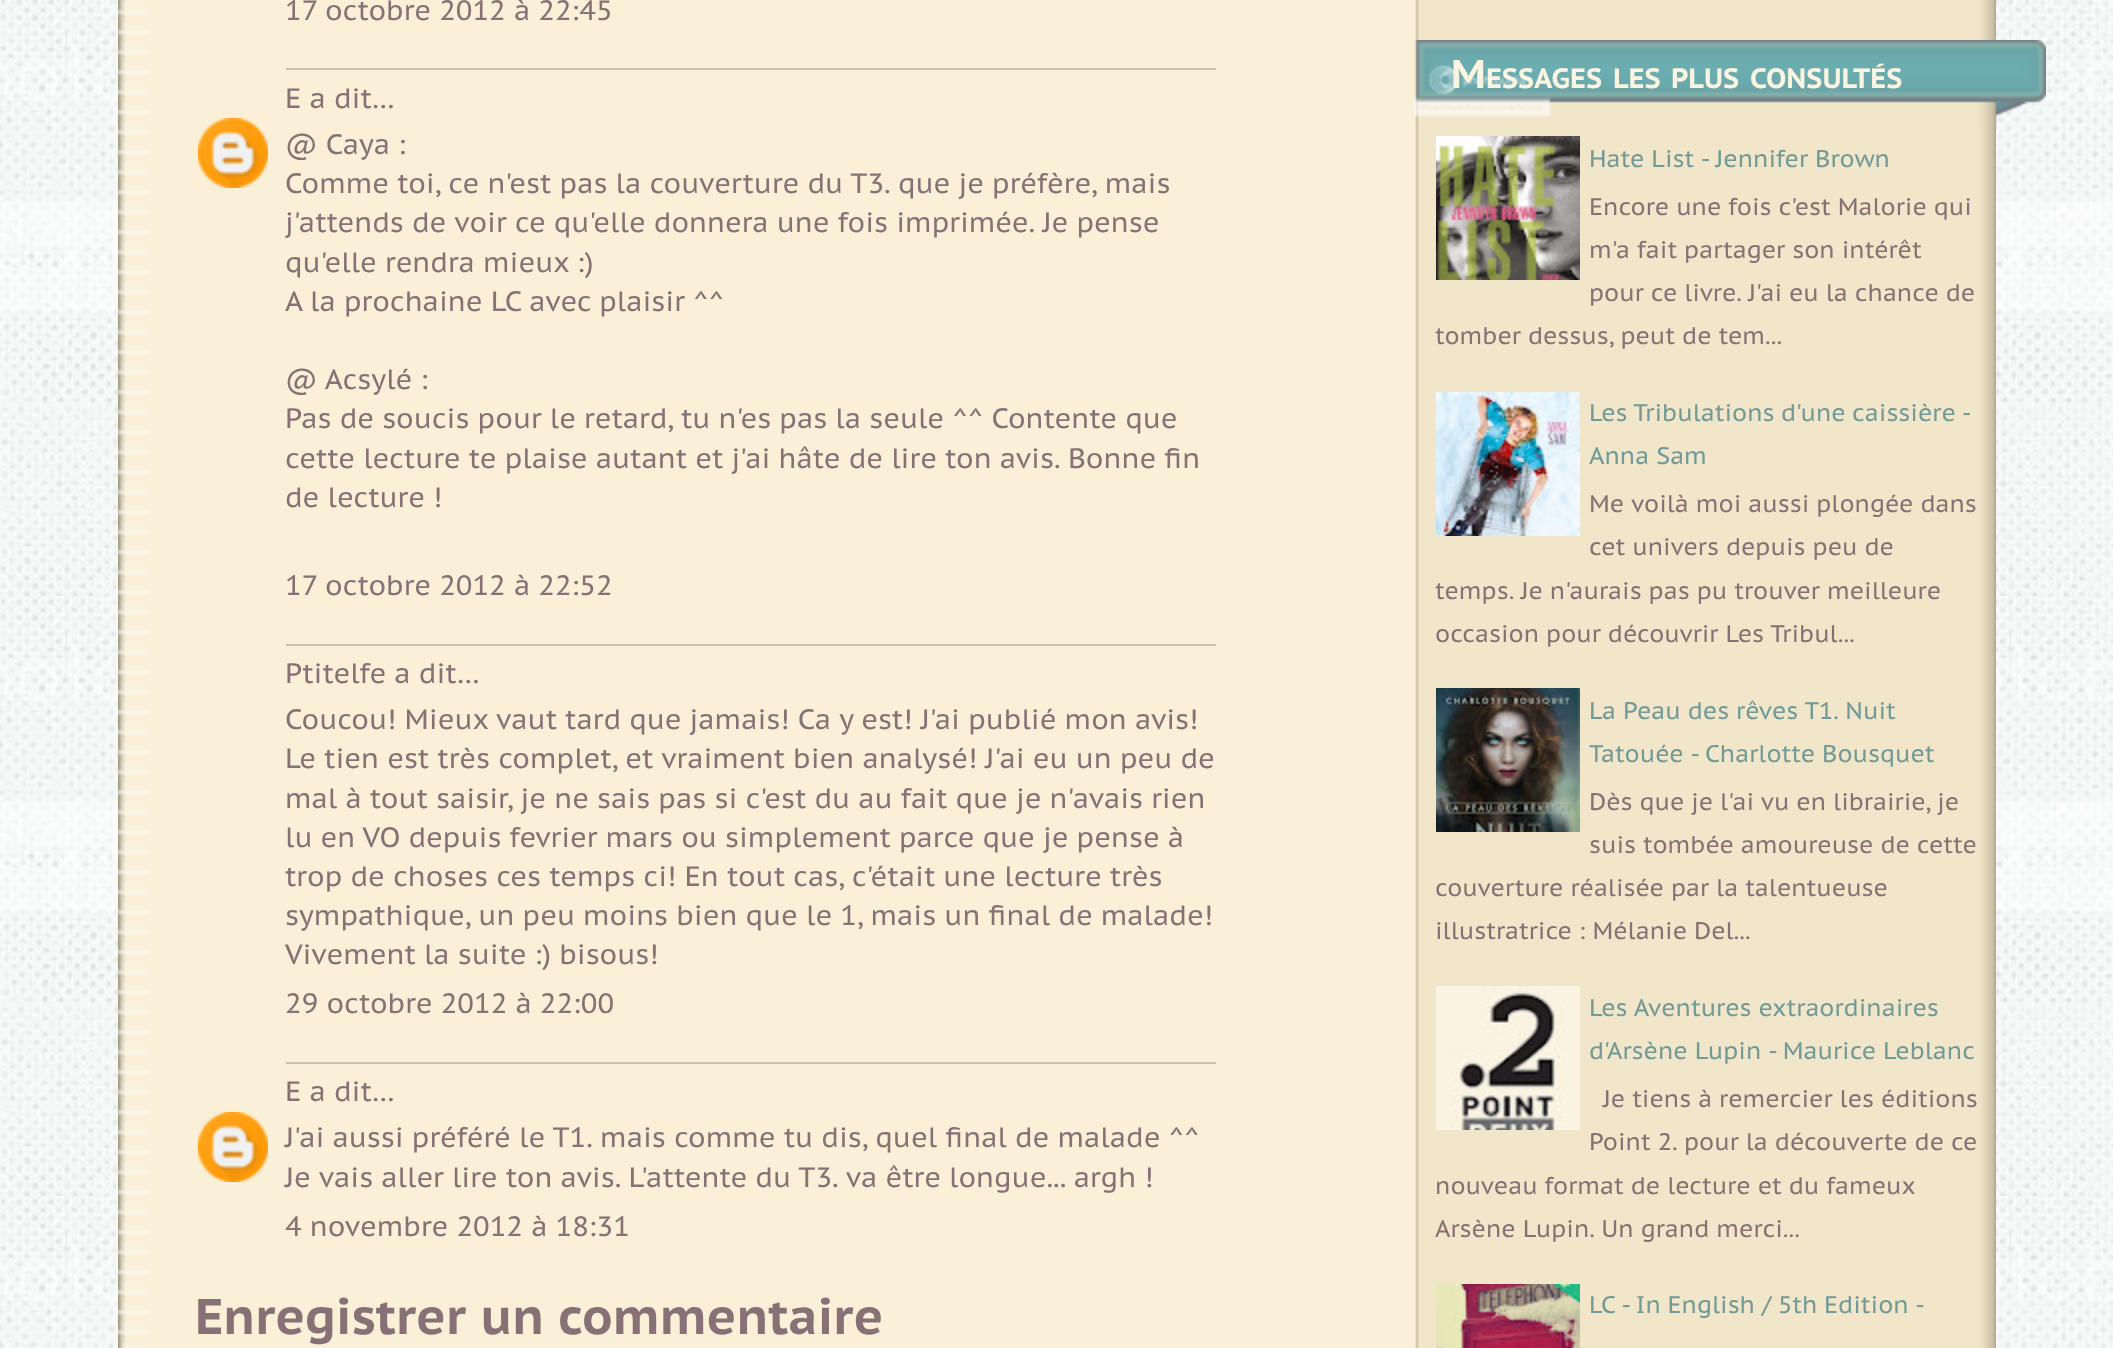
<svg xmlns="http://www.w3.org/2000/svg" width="2113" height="1348">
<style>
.a{font:28px PT Sans Caption;fill:#887176}
.b{font:bold 50px PT Sans Caption;fill:#887176}
.c{font:bold 40px PT Sans Caption;fill:#faf4e1}
.d{font:bold 28px PT Sans Caption;fill:#faf4e1}
.e{font:24px PT Sans Caption;fill:#719a98}
.f{font:24px PT Sans Caption;fill:#887176}
</style>
<rect width="100%" height="100%" fill="#fff"/>
<image href="1.png" x="0" y="0" width="2113" height="1348"/>
<image href="2.png" x="118" y="0" width="1878" height="1348"/>
<path fill="#cec0ac" d="M286 68h930v2H286z"/>
<image href="3.png" x="198" y="118" width="70" height="70"/>
<path fill="#cec0ac" d="M286 644h930v2H286z"/>
<path fill="#cec0ac" d="M286 1062h930v2H286z"/>
<image href="3.png" x="198" y="1112" width="70" height="70"/>
<image href="4.png" x="1414" y="40" width="632" height="90"/>
<image href="5.png" x="1436" y="136" width="144" height="144"/>
<image href="6.png" x="1436" y="392" width="144" height="144"/>
<image href="7.png" x="1436" y="688" width="144" height="144"/>
<image href="8.png" x="1436" y="986" width="144" height="144"/>
<image href="9.png" x="1436" y="1284" width="144" height="64"/>
<text class="a" x="285" y="20">17 octobre 2012 à 22:45</text>
<text class="a" x="285" y="108">E a dit…</text>
<text class="a" x="285" y="154">@ Caya :</text>
<text class="a" x="285" y="193">Comme toi, ce n'est pas la couverture du T3. que je préfère, mais</text>
<text class="a" x="285" y="232">j'attends de voir ce qu'elle donnera une fois imprimée. Je pense</text>
<text class="a" x="285" y="272">qu'elle rendra mieux :)</text>
<text class="a" x="285" y="311">A la prochaine LC avec plaisir ^^</text>
<text class="a" x="285" y="389">@ Acsylé :</text>
<text class="a" x="285" y="428">Pas de soucis pour le retard, tu n'es pas la seule ^^ Contente que</text>
<text class="a" x="285" y="468">cette lecture te plaise autant et j'ai hâte de lire ton avis. Bonne fin</text>
<text class="a" x="285" y="507">de lecture !</text>
<text class="a" x="285" y="595">17 octobre 2012 à 22:52</text>
<text class="a" x="285" y="683">Ptitelfe a dit…</text>
<text class="a" x="285" y="729">Coucou! Mieux vaut tard que jamais! Ca y est! J'ai publié mon avis!</text>
<text class="a" x="285" y="768">Le tien est très complet, et vraiment bien analysé! J'ai eu un peu de</text>
<text class="a" x="285" y="808">mal à tout saisir, je ne sais pas si c'est du au fait que je n'avais rien</text>
<text class="a" x="285" y="847">lu en VO depuis fevrier mars ou simplement parce que je pense à</text>
<text class="a" x="285" y="886">trop de choses ces temps ci! En tout cas, c'était une lecture très</text>
<text class="a" x="285" y="925">sympathique, un peu moins bien que le 1, mais un final de malade!</text>
<text class="a" x="285" y="964">Vivement la suite :) bisous!</text>
<text class="a" x="285" y="1013">29 octobre 2012 à 22:00</text>
<text class="a" x="285" y="1101">E a dit…</text>
<text class="a" x="285" y="1147">J'ai aussi préféré le T1. mais comme tu dis, quel final de malade ^^</text>
<text class="a" x="285" y="1187">Je vais aller lire ton avis. L'attente du T3. va être longue... argh !</text>
<text class="a" x="285" y="1236">4 novembre 2012 à 18:31</text>
<text class="b" x="195" y="1334">Enregistrer un commentaire</text>
<text class="c" x="1451" y="88">M</text>
<text class="d" x="1486" y="88">ESSAGES</text>
<text class="d" x="1613" y="88">LES</text>
<text class="d" x="1671" y="88">PLUS</text>
<text class="d" x="1750" y="88">CONSULTÉS</text>
<text class="e" x="1589" y="167">Hate List - Jennifer Brown</text>
<text class="f" x="1589" y="215">Encore une fois c'est Malorie qui</text>
<text class="f" x="1589" y="258">m'a fait partager son intérêt</text>
<text class="f" x="1589" y="301">pour ce livre. J'ai eu la chance de</text>
<text class="f" x="1435" y="344">tomber dessus, peut de tem...</text>
<text class="e" x="1589" y="421" word-spacing="-0.5">Les Tribulations d'une caissière -</text>
<text class="e" x="1589" y="464">Anna Sam</text>
<text class="f" x="1589" y="512">Me voilà moi aussi plongée dans</text>
<text class="f" x="1589" y="555">cet univers depuis peu de</text>
<text class="f" x="1435" y="599">temps. Je n'aurais pas pu trouver meilleure</text>
<text class="f" x="1435" y="642">occasion pour découvrir Les Tribul...</text>
<text class="e" x="1589" y="719">La Peau des rêves T1. Nuit</text>
<text class="e" x="1589" y="762">Tatouée - Charlotte Bousquet</text>
<text class="f" x="1589" y="810">Dès que je l'ai vu en librairie, je</text>
<text class="f" x="1589" y="853">suis tombée amoureuse de cette</text>
<text class="f" x="1435" y="896">couverture réalisée par la talentueuse</text>
<text class="f" x="1435" y="939">illustratrice : Mélanie Del...</text>
<text class="e" x="1589" y="1016">Les Aventures extraordinaires</text>
<text class="e" x="1589" y="1059">d'Arsène Lupin - Maurice Leblanc</text>
<text class="f" x="1603" y="1107">Je tiens à remercier les éditions</text>
<text class="f" x="1589" y="1150">Point 2. pour la découverte de ce</text>
<text class="f" x="1435" y="1194">nouveau format de lecture et du fameux</text>
<text class="f" x="1435" y="1237">Arsène Lupin. Un grand merci...</text>
<text class="e" x="1589" y="1313" word-spacing="-0.25">LC - In English / 5th Edition -</text>
</svg>
